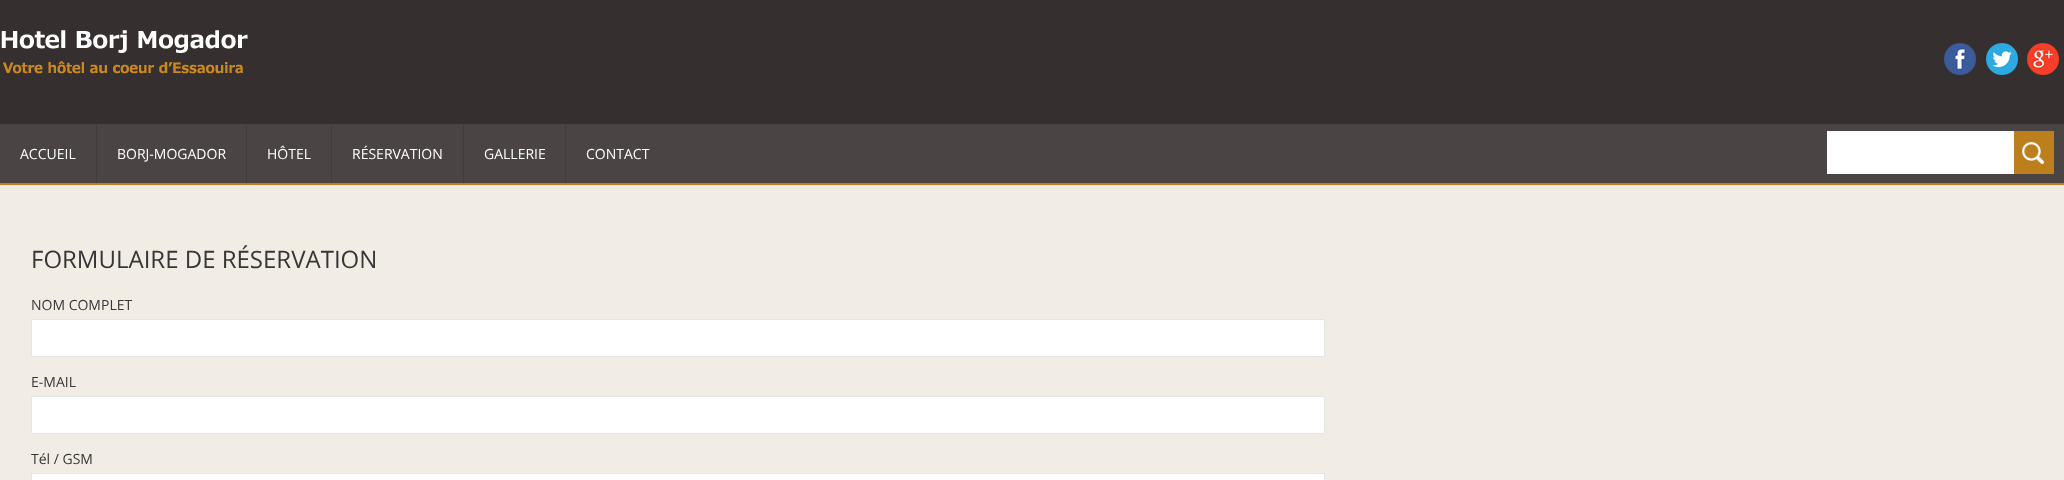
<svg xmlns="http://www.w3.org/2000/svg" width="2064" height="480">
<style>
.a{font:14px Open Sans;fill:#fff}
.b{font:24px Open Sans;fill:#363638}
.c{font:14px Open Sans;fill:#363638}
</style>
<rect width="100%" height="100%" fill="#f1ede4"/>
<path fill="#352f2f" d="M0 0h2064v124H0z"/>
<path fill="#bd7f1c" d="M0 183h2064v2H0z"/>
<image href="1.png" x="1" y="30" width="247" height="44"/>
<image href="2.png" x="1944" y="43" width="32" height="32"/>
<image href="3.png" x="1986" y="43" width="32" height="32"/>
<image href="4.png" x="2027" y="43" width="32" height="32"/>
<path fill="#4a4444" d="M0 124h2064v59H0z"/>
<path fill="#3d3d3d" d="M96 124h1v59H96z"/>
<path fill="#3d3d3d" d="M246 124h1v59H246z"/>
<path fill="#3d3d3d" d="M331 124h1v59H331z"/>
<path fill="#3d3d3d" d="M463 124h1v59H463z"/>
<path fill="#3d3d3d" d="M565 124h1v59H565z"/>
<path fill="#fff" d="M1827 131h187v43H1827z"/>
<path fill="#bd7f1c" d="M2014 131h40v43H2014z"/>
<image href="5.png" x="2022" y="142" width="22" height="22"/>
<path fill="#fff" stroke="#e5e5e5" d="M31.5 319.5h1293v37H31.5z"/>
<path fill="#fff" stroke="#e5e5e5" d="M31.5 396.5h1293v37H31.5z"/>
<path fill="#fff" stroke="#e5e5e5" d="M31.5 473.5h1293v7H31.5z"/>
<text class="a" x="20" y="159">ACCUEIL</text>
<text class="a" x="117" y="159">BORJ-MOGADOR</text>
<text class="a" x="267" y="159">HÔTEL</text>
<text class="a" x="352" y="159">RÉSERVATION</text>
<text class="a" x="484" y="159">GALLERIE</text>
<text class="a" x="586" y="159">CONTACT</text>
<text class="b" x="31" y="268">FORMULAIRE DE RÉSERVATION</text>
<text class="c" x="31" y="310">NOM COMPLET</text>
<text class="c" x="31" y="387">E-MAIL</text>
<text class="c" x="31" y="464">Tél / GSM</text>
</svg>
